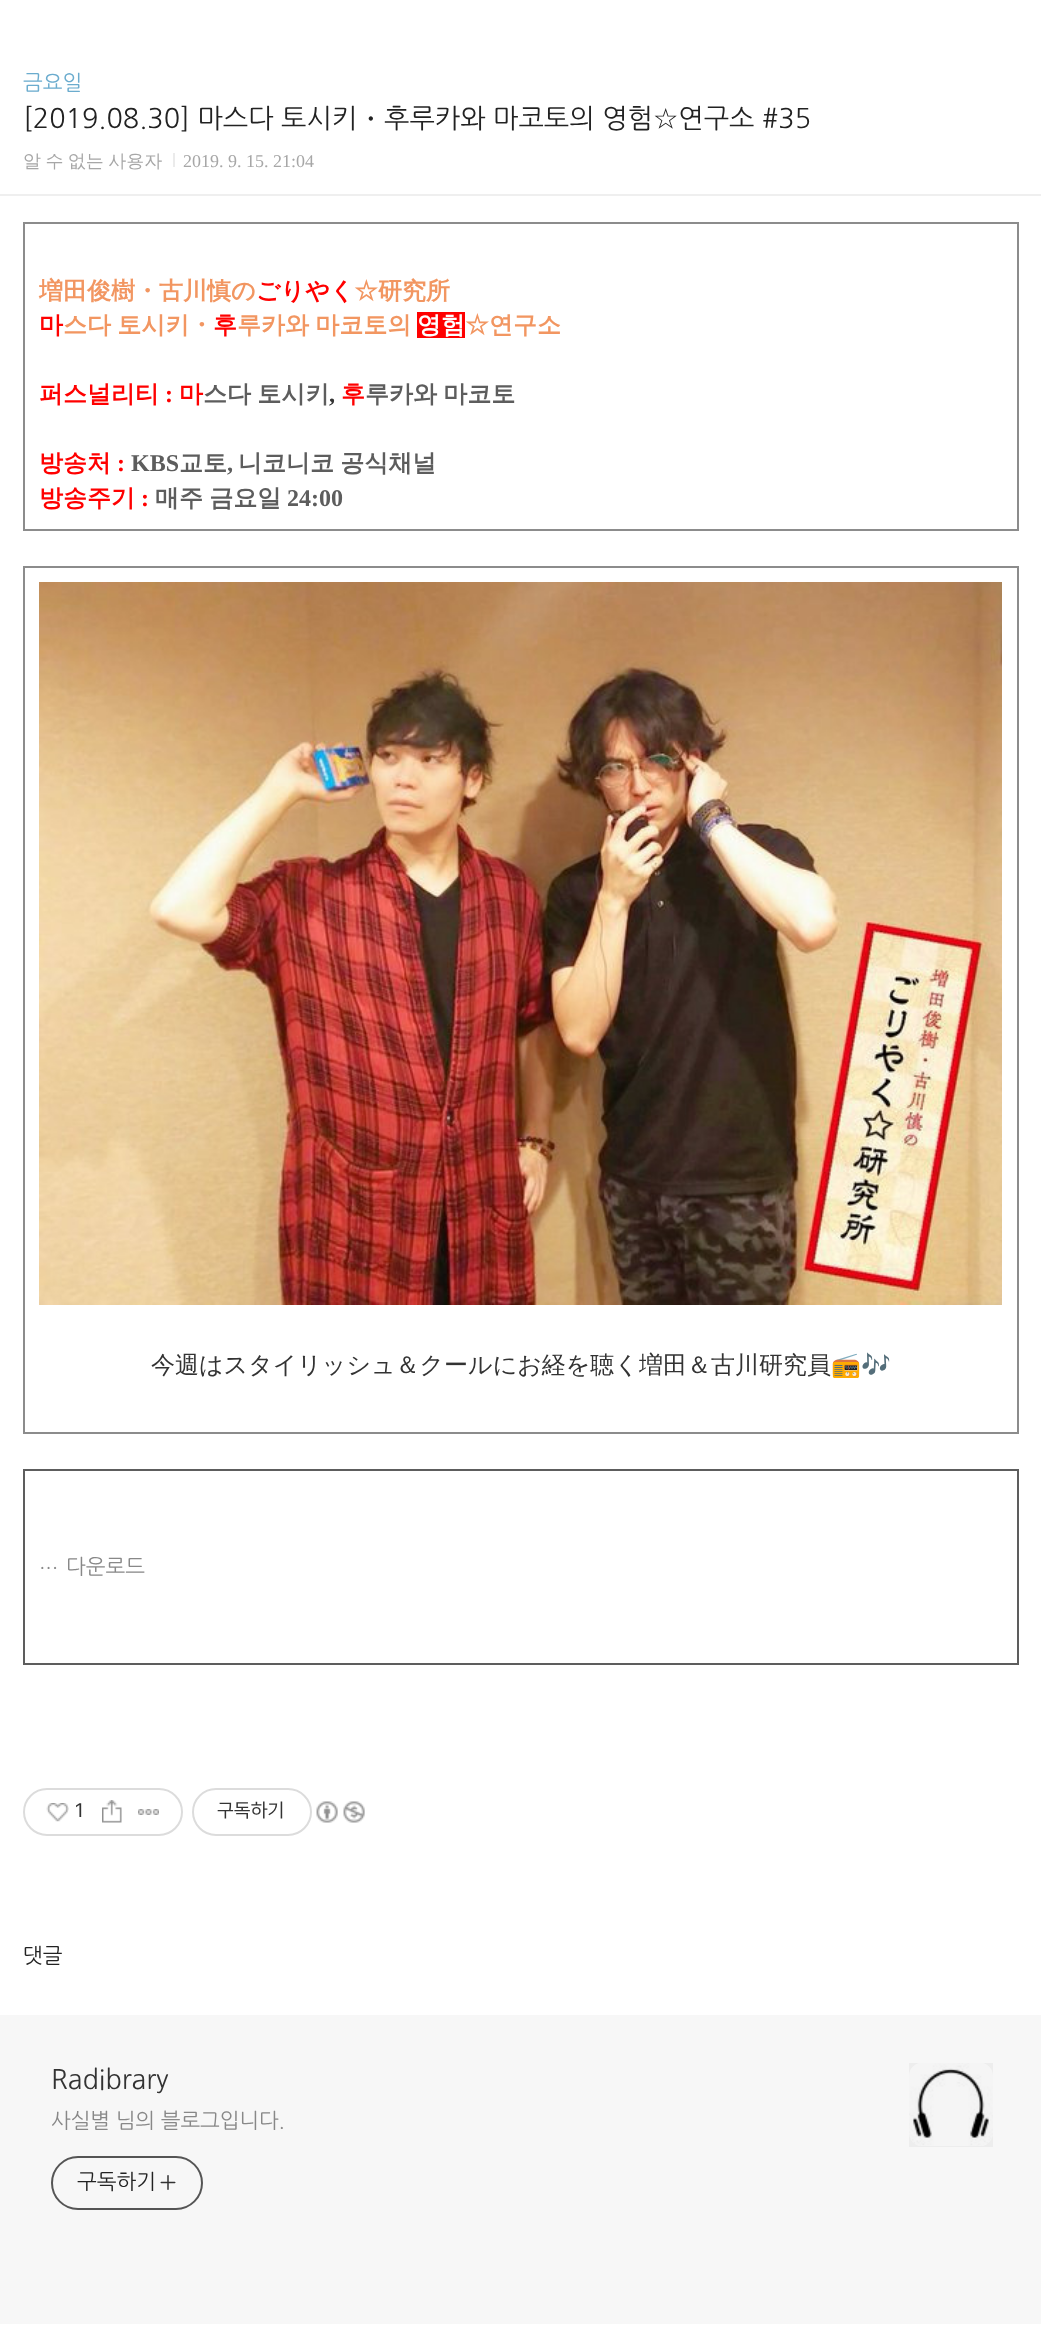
<svg xmlns="http://www.w3.org/2000/svg" width="1041" height="2330">
<style>
.a{font:21px NanumGothic;fill:#6bacce}
.b{font:27px NanumGothic;fill:#222}
.c{font:500 27px WenQuanYi Zen Hei;fill:#222}
.d{font:500 18px WenQuanYi Zen Hei;fill:#a7a7a7}
.e{font:18px Liberation Serif;fill:#a7a7a7}
.f{font:bold 24px WenQuanYi Zen Hei;fill:#f29661}
.g{font:bold 24px WenQuanYi Zen Hei;fill:#f00}
.h{font:bold 24px WenQuanYi Zen Hei;fill:#fff}
.i{font:bold 24px Liberation Serif;fill:#f00}
.j{font:bold 24px WenQuanYi Zen Hei;fill:#5d5d5d}
.k{font:bold 24px Liberation Serif;fill:#333}
.l{font:bold 24px Liberation Serif;fill:#5d5d5d}
.m{font:500 24px WenQuanYi Zen Hei;fill:#333}
.n{font:24px Noto Color Emoji;fill:#333}
.o{font:21px NanumGothic;fill:#888}
.p{font:19.5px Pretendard;fill:#333}
.q{font:21px NanumGothic;fill:#222}
.r{font:27px NanumGothic;fill:#333}
.s{font:21px NanumGothic;letter-spacing:-0.1px;fill:#888}
</style>
<rect width="100%" height="100%" fill="#fff"/>
<path fill="#efefef" d="M0 194h1041v2H0z"/>
<path fill="#ebebeb" d="M173 153h2v14H173z"/>
<path fill="none" stroke="#8c8c8c" stroke-width="2" d="M24 223h994v307H24z"/>
<path fill="#f00" d="M417 312h48v26H417z"/>
<path fill="none" stroke="#8c8c8c" stroke-width="2" d="M24 567h994v866H24z"/>
<image href="1.png" x="39" y="582" width="963" height="723"/>
<path fill="none" stroke="#5d5d5d" stroke-width="2" d="M24 1470h994v194H24z"/>
<rect fill="none" stroke="#dcdcdc" stroke-width="2" x="24" y="1789" width="158" height="46" rx="23"/>
<image href="2.png" x="46" y="1803" width="23" height="19"/>
<image href="3.png" x="102" y="1800" width="20" height="23"/>
<image href="4.png" x="138" y="1809" width="21" height="6"/>
<rect fill="none" stroke="#dcdcdc" stroke-width="2" x="193" y="1789" width="118" height="46" rx="23"/>
<image href="5.png" x="316" y="1801" width="22" height="22"/>
<image href="6.png" x="343" y="1801" width="22" height="22"/>
<path fill="#f7f7f7" d="M0 2015h1041v309H0z"/>
<rect fill="none" stroke="#555" stroke-width="2" x="52" y="2157" width="150" height="52" rx="26"/>
<image href="7.png" x="160" y="2175" width="16" height="15"/>
<image href="8.png" x="909" y="2063" width="84" height="83"/>
<path fill="#0000000a" d="M909 2063h84v84H909z"/>
<text class="a" x="23" y="90">금요일</text>
<text class="b" x="23" y="128">[2019.08.30] 마스다 토시키</text>
<text class="c" x="357" y="128">・</text>
<text class="b" x="384" y="128">후루카와 마코토의 영험☆연구소 #35</text>
<text class="d" x="23" y="167" word-spacing="-1">알 수 없는 사용자</text>
<text class="e" x="183" y="167">2019. 9. 15. 21:04</text>
<text class="f" x="39" y="299">増田俊樹・古川慎の</text>
<text class="g" x="256" y="299">ごりやく</text>
<text class="f" x="354" y="299">☆研究所</text>
<text class="g" x="39" y="333">마</text>
<text class="f" x="63" y="333" word-spacing="-1">스다 토시키・</text>
<text class="g" x="213" y="333">후</text>
<text class="f" x="237" y="333" word-spacing="-1">루카와 마코토의</text>
<text class="h" x="417" y="333">영험</text>
<text class="f" x="465" y="333">☆연구소</text>
<text class="g" x="39" y="402">퍼스널리티</text>
<text class="i" x="165" y="402">:</text>
<text class="g" x="179" y="402">마</text>
<text class="j" x="203" y="402" word-spacing="-1">스다 토시키</text>
<text class="k" x="329" y="402">,</text>
<text class="g" x="341" y="402">후</text>
<text class="j" x="365" y="402" word-spacing="-1">루카와 마코토</text>
<text class="g" x="39" y="471">방송처</text>
<text class="i" x="117" y="471">:</text>
<text class="l" x="131" y="471">KBS</text>
<text class="j" x="179" y="471">교토</text>
<text class="l" x="227" y="471">,</text>
<text class="j" x="238" y="471" word-spacing="-1">니코니코 공식채널</text>
<text class="g" x="39" y="506">방송주기</text>
<text class="i" x="141" y="506">:</text>
<text class="j" x="155" y="506" word-spacing="-1">매주 금요일</text>
<text class="l" x="287" y="506">24:00</text>
<text class="m" x="151" y="1373">今週はスタイリッシュ＆クールにお経を聴く増田＆古川研究員</text>
<text class="n" x="831" y="1373">📻🎶</text>
<text class="o" x="39" y="1568">...</text>
<text class="o" x="66" y="1574">다운로드</text>
<text class="p" x="75" y="1817">1</text>
<text class="p" x="217" y="1817">구독하기</text>
<text class="q" x="23" y="1963">댓글</text>
<text class="r" x="51" y="2089">Radibrary</text>
<text class="s" x="51" y="2128">사실별 님의 블로그입니다.</text>
<text class="q" x="77" y="2189">구독하기</text>
</svg>
